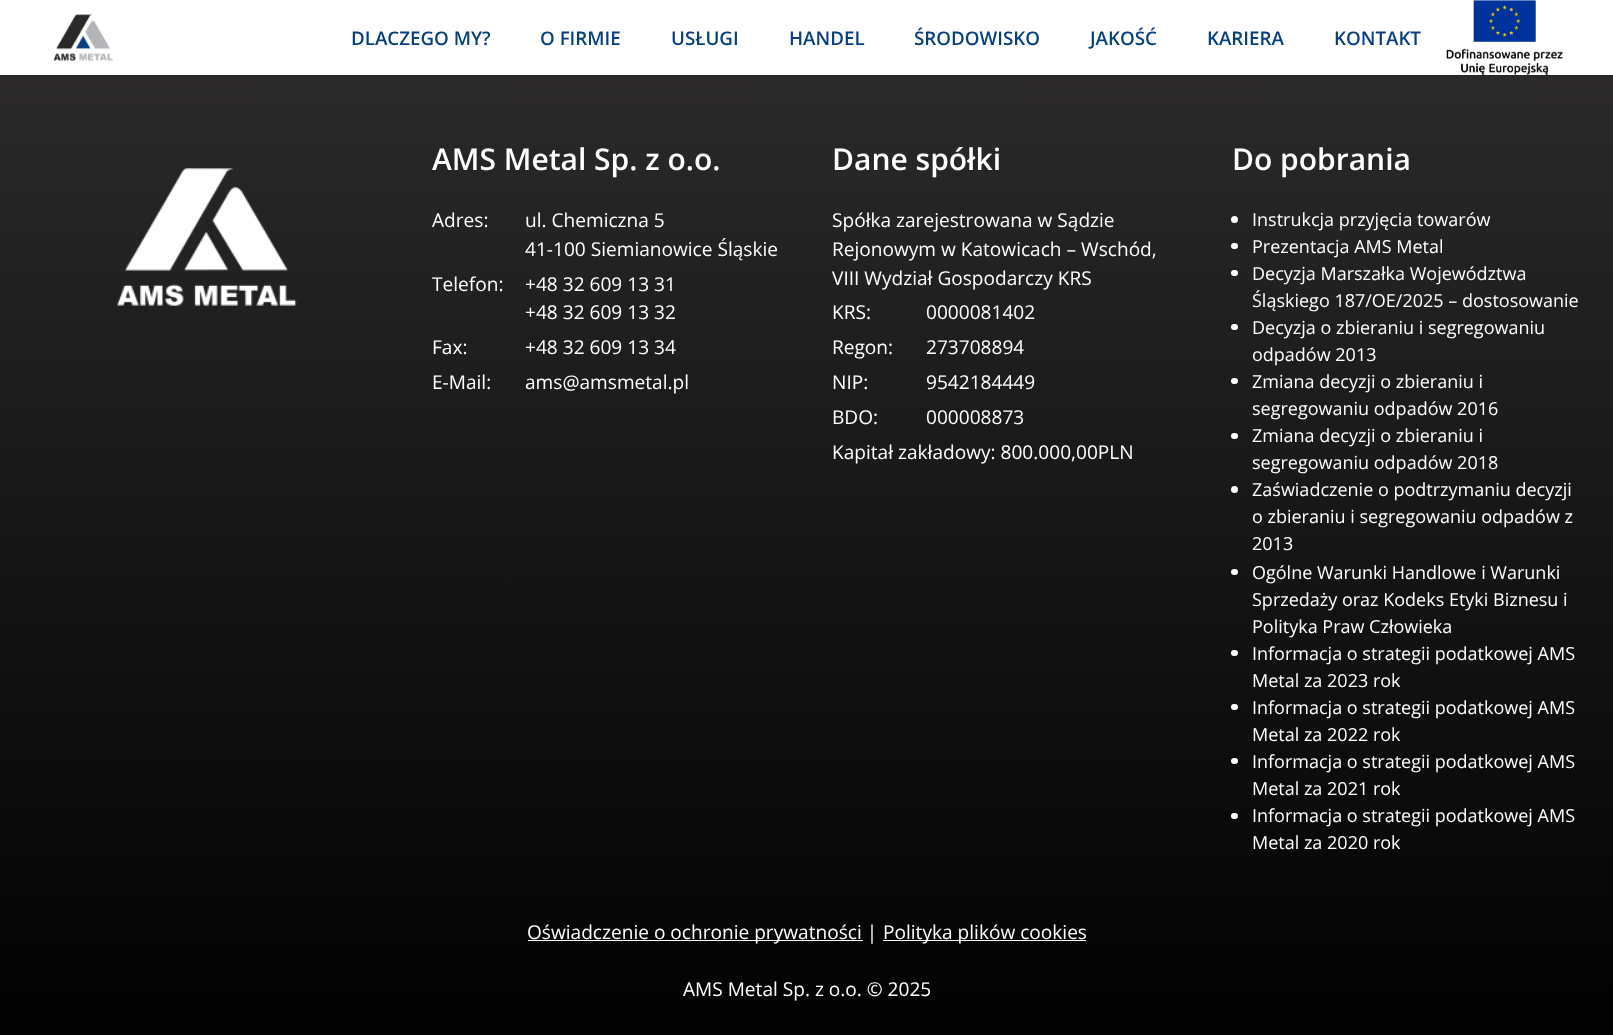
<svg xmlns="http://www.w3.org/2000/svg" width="1613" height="1035">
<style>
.a{font:600 18.75px Open Sans;fill:#08407c}
.b{font:600 30px Open Sans;fill:#fff}
.c{font:19.1px Open Sans;fill:#fff}
.d{font:18px Open Sans;fill:#fff}
</style>
<defs>
<linearGradient id="g1" gradientUnits="userSpaceOnUse" x1="807" y1="74" x2="807" y2="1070"><stop offset="0" stop-color="#2b2929"/><stop offset="1" stop-color="#000"/></linearGradient>
</defs>
<rect width="100%" height="100%" fill="#fff"/>
<path fill="url(#g1)" d="M0 75h1613v960H0z"/>
<path fill="#00000033" filter="blur(1px)" d="M3 5h1608v70H3z"/>
<path fill="#fff" d="M1 3h1612v72H1z"/>
<image href="1.png" x="53" y="14" width="60" height="48"/>
<image href="2.png" x="1446" y="0" width="117" height="75"/>
<image href="3.png" x="117" y="168" width="180" height="138"/>
<circle fill="#fff" cx="1234.5" cy="219.5" r="3.5"/>
<rect fill="#fff" x="1231" y="243" width="7" height="6" rx="3"/>
<rect fill="#fff" x="1231" y="270" width="7" height="6" rx="3"/>
<rect fill="#fff" x="1231" y="324" width="7" height="6" rx="3"/>
<rect fill="#fff" x="1231" y="378" width="7" height="6" rx="3"/>
<rect fill="#fff" x="1231" y="433" width="7" height="6" rx="3"/>
<circle fill="#fff" cx="1234.5" cy="489.5" r="3.5"/>
<rect fill="#fff" x="1231" y="569" width="7" height="6" rx="3"/>
<rect fill="#fff" x="1231" y="650" width="7" height="6" rx="3"/>
<rect fill="#fff" x="1231" y="704" width="7" height="6" rx="3"/>
<rect fill="#fff" x="1231" y="758" width="7" height="6" rx="3"/>
<rect fill="#fff" x="1231" y="813" width="7" height="6" rx="3"/>
<path fill="#fff" d="M528 940h335v1H528z"/>
<path fill="#fff" d="M883 940h203v1H883z"/>
<text class="a" x="351" y="45">DLACZEGO MY?</text>
<text class="a" x="540" y="45">O FIRMIE</text>
<text class="a" x="671" y="45">USŁUGI</text>
<text class="a" x="789" y="45">HANDEL</text>
<text class="a" x="914" y="45">ŚRODOWISKO</text>
<text class="a" x="1090" y="45">JAKOŚĆ</text>
<text class="a" x="1207" y="45">KARIERA</text>
<text class="a" x="1334" y="45">KONTAKT</text>
<text class="b" x="432" y="170">AMS Metal Sp. z o.o.</text>
<text class="c" x="432" y="227">Adres:</text>
<text class="c" x="525" y="227">ul. Chemiczna 5</text>
<text class="c" x="525" y="256">41-100 Siemianowice Śląskie</text>
<text class="c" x="432" y="291">Telefon:</text>
<text class="c" x="525" y="291">+48 32 609 13 31</text>
<text class="c" x="525" y="319">+48 32 609 13 32</text>
<text class="c" x="432" y="354">Fax:</text>
<text class="c" x="525" y="354">+48 32 609 13 34</text>
<text class="c" x="432" y="389">E-Mail:</text>
<text class="c" x="525" y="389">ams@amsmetal.pl</text>
<text class="b" x="832" y="170">Dane spółki</text>
<text class="c" x="832" y="227">Spółka zarejestrowana w Sądzie</text>
<text class="c" x="832" y="256">Rejonowym w Katowicach – Wschód,</text>
<text class="c" x="832" y="285">VIII Wydział Gospodarczy KRS</text>
<text class="c" x="832" y="319">KRS:</text>
<text class="c" x="926" y="319">0000081402</text>
<text class="c" x="832" y="354">Regon:</text>
<text class="c" x="926" y="354">273708894</text>
<text class="c" x="832" y="389">NIP:</text>
<text class="c" x="926" y="389">9542184449</text>
<text class="c" x="832" y="424">BDO:</text>
<text class="c" x="926" y="424">000008873</text>
<text class="c" x="832" y="459">Kapitał zakładowy: 800.000,00PLN</text>
<text class="b" x="1232" y="170">Do pobrania</text>
<text class="d" x="1252" y="226">Instrukcja przyjęcia towarów</text>
<text class="d" x="1252" y="253">Prezentacja AMS Metal</text>
<text class="d" x="1252" y="280">Decyzja Marszałka Województwa</text>
<text class="d" x="1252" y="307">Śląskiego 187/OE/2025 – dostosowanie</text>
<text class="d" x="1252" y="334">Decyzja o zbieraniu i segregowaniu</text>
<text class="d" x="1252" y="361">odpadów 2013</text>
<text class="d" x="1252" y="388">Zmiana decyzji o zbieraniu i</text>
<text class="d" x="1252" y="415">segregowaniu odpadów 2016</text>
<text class="d" x="1252" y="442">Zmiana decyzji o zbieraniu i</text>
<text class="d" x="1252" y="469">segregowaniu odpadów 2018</text>
<text class="d" x="1252" y="496">Zaświadczenie o podtrzymaniu decyzji</text>
<text class="d" x="1252" y="523">o zbieraniu i segregowaniu odpadów z</text>
<text class="d" x="1252" y="550">2013</text>
<text class="d" x="1252" y="579">Ogólne Warunki Handlowe i Warunki</text>
<text class="d" x="1252" y="606">Sprzedaży oraz Kodeks Etyki Biznesu i</text>
<text class="d" x="1252" y="633">Polityka Praw Człowieka</text>
<text class="d" x="1252" y="660">Informacja o strategii podatkowej AMS</text>
<text class="d" x="1252" y="687">Metal za 2023 rok</text>
<text class="d" x="1252" y="714">Informacja o strategii podatkowej AMS</text>
<text class="d" x="1252" y="741">Metal za 2022 rok</text>
<text class="d" x="1252" y="768">Informacja o strategii podatkowej AMS</text>
<text class="d" x="1252" y="795">Metal za 2021 rok</text>
<text class="d" x="1252" y="822">Informacja o strategii podatkowej AMS</text>
<text class="d" x="1252" y="849">Metal za 2020 rok</text>
<text class="c" x="527" y="939">Oświadczenie o ochronie prywatności |</text>
<text class="c" x="883" y="939">Polityka plików cookies</text>
<text class="c" x="683" y="996">AMS Metal Sp. z o.o. © 2025</text>
</svg>
